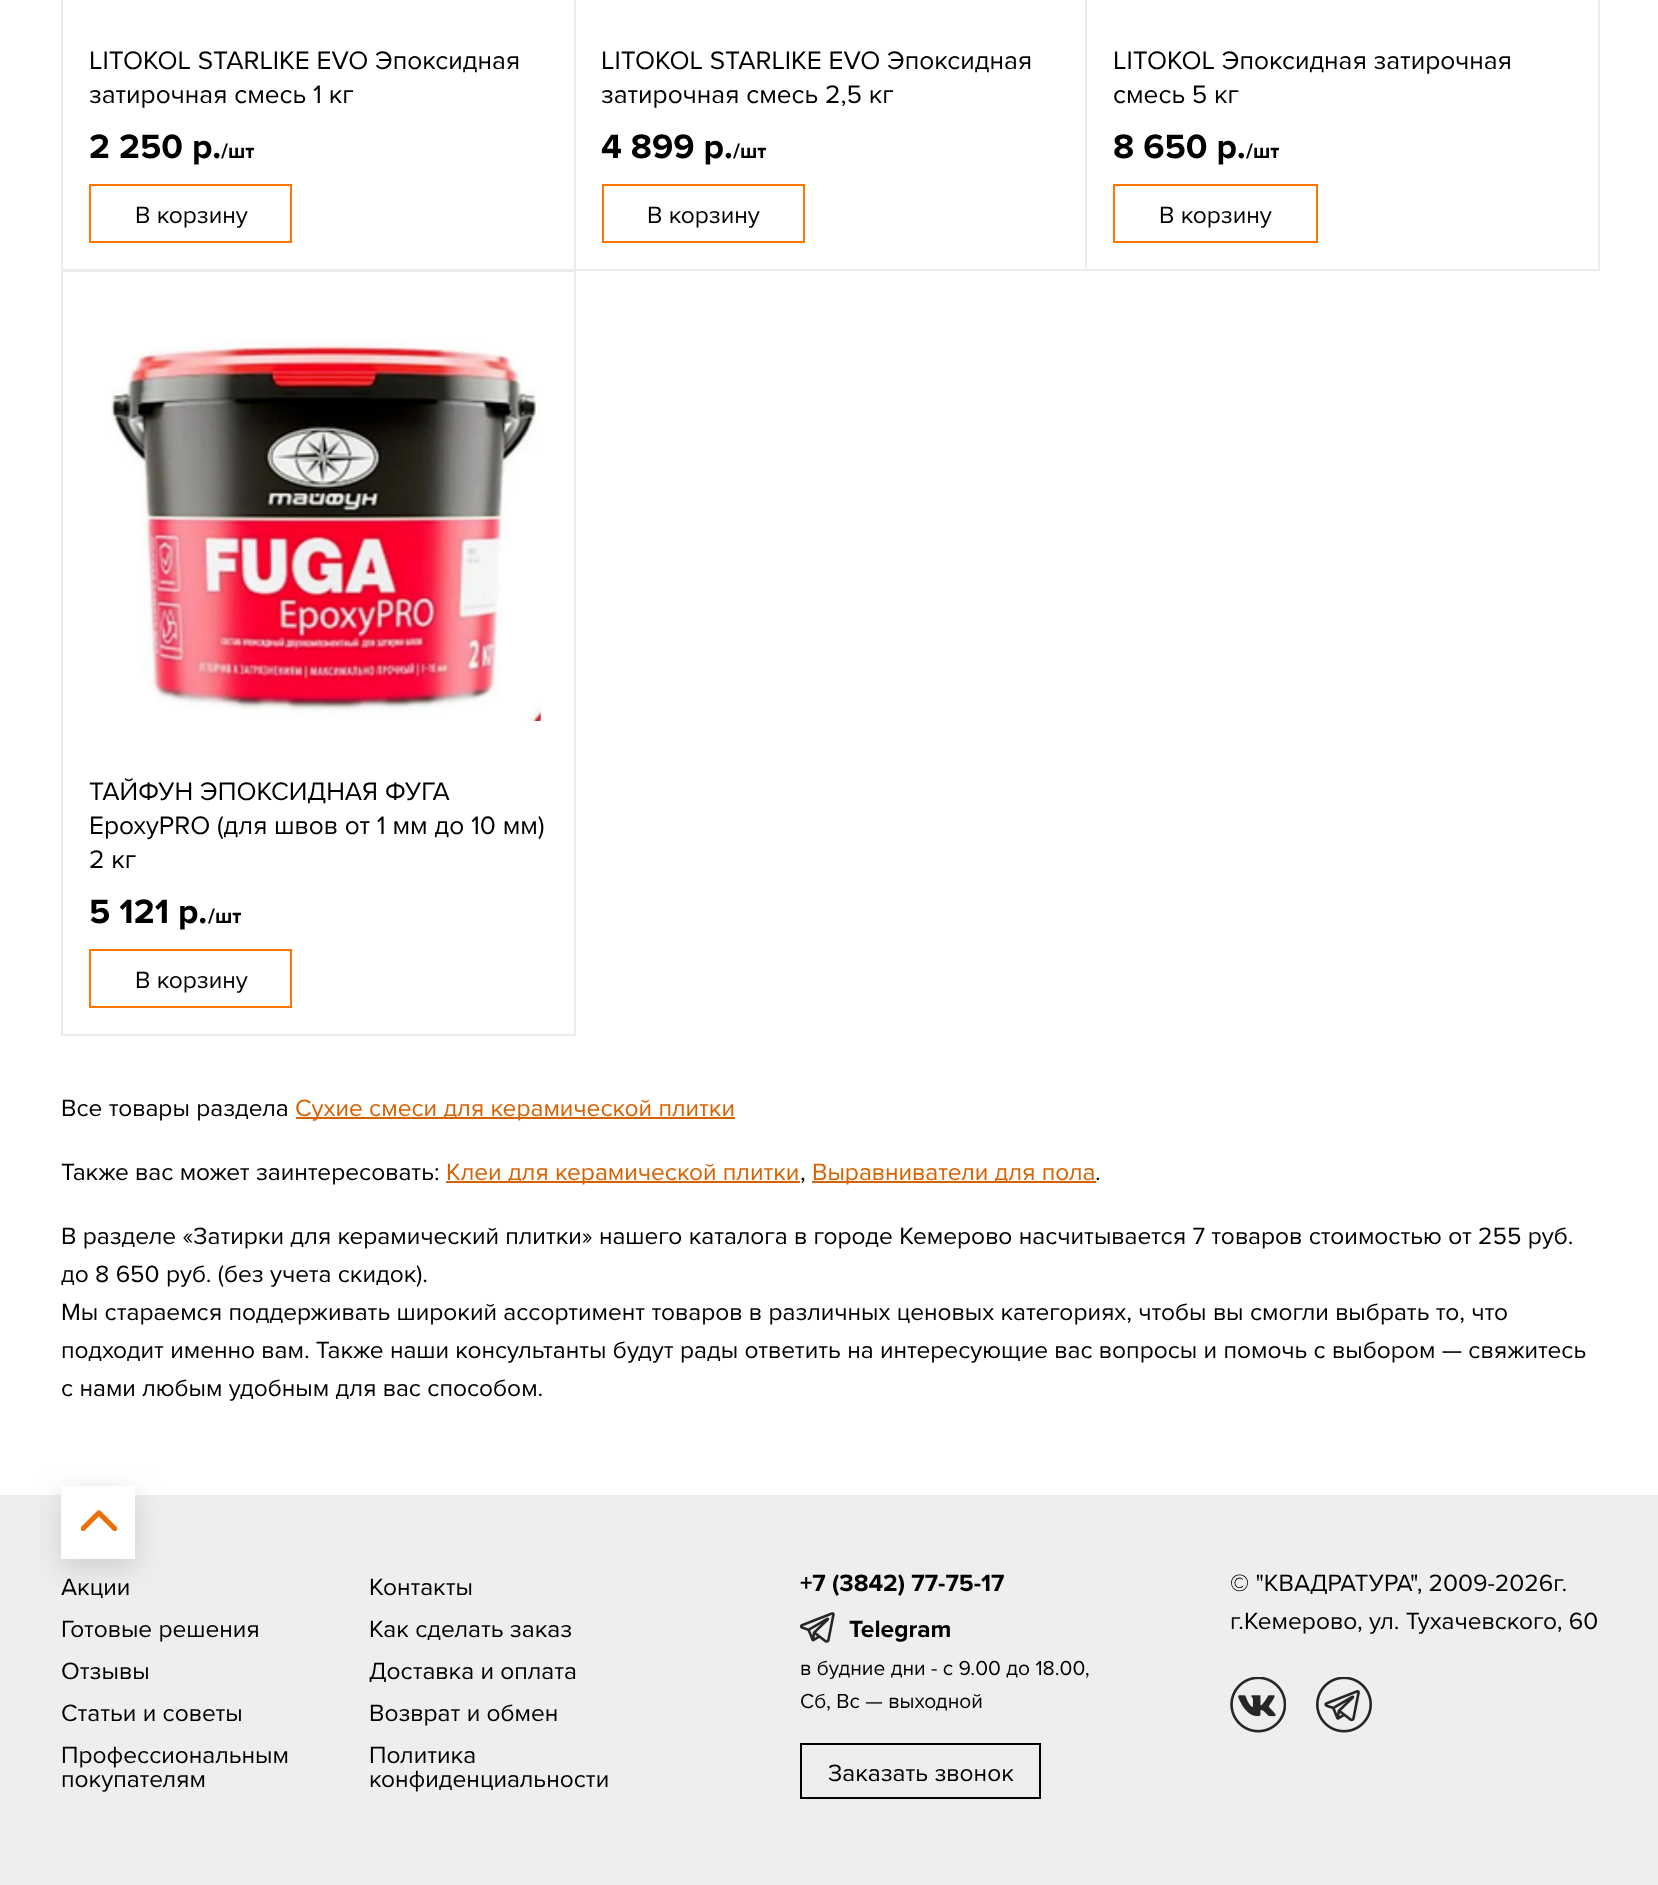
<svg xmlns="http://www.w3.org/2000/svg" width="1658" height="1885">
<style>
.a{font:26.25px Proxima Nova;fill:#000}
.b{font:bold 35px Proxima Nova;fill:#000}
.c{font:bold 21px Proxima Nova;fill:#000}
.d{font:24.5px Proxima Nova;fill:#000}
.e{font:24.5px Proxima Nova;fill:#d86200}
.f{font:bold 24.5px Proxima Nova;fill:#000}
.g{font:21px Proxima Nova;fill:#000}
</style>
<defs>
<clipPath id="clip1"><path d="M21 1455h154v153h-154zm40 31h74v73h-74z" clip-rule="evenodd"/></clipPath>
</defs>
<rect width="100%" height="100%" fill="#fff"/>
<path fill="none" stroke="#ececec" stroke-width="2" d="M62 -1h513v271H62z"/>
<path fill="none" stroke="#ff7500" stroke-width="2" d="M90 185h201v57H90z"/>
<path fill="none" stroke="#ececec" stroke-width="2" d="M575 -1h511v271H575z"/>
<path fill="none" stroke="#ff7500" stroke-width="2" d="M603 185h201v57H603z"/>
<path fill="none" stroke="#ececec" stroke-width="2" d="M1086 -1h513v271H1086z"/>
<path fill="none" stroke="#ff7500" stroke-width="2" d="M1114 185h203v57H1114z"/>
<path fill="none" stroke="#ececec" stroke-width="2" d="M62 271h513v764H62z"/>
<image href="1.png" x="111" y="340" width="430" height="381"/>
<path fill="none" stroke="#ff7500" stroke-width="2" d="M90 950h201v57H90z"/>
<path fill="#d86200" d="M296 1117h439v2H296z"/>
<path fill="#d86200" d="M446 1181h354v2H446z"/>
<path fill="#d86200" d="M812 1181h284v2H812z"/>
<path fill="#eee" d="M0 1495h1658v390H0z"/>
<g clip-path="url(#clip1)">
<path fill="#ccccccf7" filter="blur(13px)" d="M61 1495h74v73H61z"/>
</g>
<path fill="#fffffff7" d="M61 1493h74v66H61z"/>
<image href="2.png" x="81" y="1510" width="36" height="21"/>
<image href="3.png" x="800" y="1612" width="35" height="31"/>
<path fill="none" stroke="#000" stroke-width="2" d="M801 1744h239v54H801z"/>
<image href="4.png" x="1230" y="1677" width="56" height="56"/>
<image href="5.png" x="1316" y="1677" width="56" height="56"/>
<text class="a" x="89" y="69">LITOKOL STARLIKE EVO Эпоксидная</text>
<text class="a" x="89" y="103">затирочная смесь 1 кг</text>
<text class="b" x="89" y="158">2 250 р.</text>
<text class="c" x="221" y="158">/шт</text>
<text class="d" x="135" y="223">В корзину</text>
<text class="a" x="601" y="69">LITOKOL STARLIKE EVO Эпоксидная</text>
<text class="a" x="601" y="103">затирочная смесь 2,5 кг</text>
<text class="b" x="601" y="158">4 899 р.</text>
<text class="c" x="733" y="158">/шт</text>
<text class="d" x="647" y="223">В корзину</text>
<text class="a" x="1113" y="69">LITOKOL Эпоксидная затирочная</text>
<text class="a" x="1113" y="103">смесь 5 кг</text>
<text class="b" x="1113" y="158">8 650 р.</text>
<text class="c" x="1246" y="158">/шт</text>
<text class="d" x="1159" y="223">В корзину</text>
<text class="a" x="89" y="800">ТАЙФУН ЭПОКСИДНАЯ ФУГА</text>
<text class="a" x="89" y="834">EpoxyPRO (для швов от 1 мм до 10 мм)</text>
<text class="a" x="89" y="868">2 кг</text>
<text class="b" x="89" y="923">5 121 р.</text>
<text class="c" x="208" y="923">/шт</text>
<text class="d" x="135" y="988">В корзину</text>
<text class="d" x="61" y="1116">Все товары раздела</text>
<text class="e" x="295" y="1116">Сухие смеси для керамической плитки</text>
<text class="d" x="61" y="1180">Также вас может заинтересовать:</text>
<text class="e" x="446" y="1180">Клеи для керамической плитки</text>
<text class="d" x="800" y="1180">,</text>
<text class="e" x="812" y="1180">Выравниватели для пола</text>
<text class="d" x="1095" y="1180">.</text>
<text class="d" x="61" y="1244">В разделе «Затирки для керамический плитки» нашего каталога в городе Кемерово насчитывается 7 товаров стоимостью от 255 руб.</text>
<text class="d" x="61" y="1282">до 8 650 руб. (без учета скидок).</text>
<text class="d" x="61" y="1320">Мы стараемся поддерживать широкий ассортимент товаров в различных ценовых категориях, чтобы вы смогли выбрать то, что</text>
<text class="d" x="61" y="1358">подходит именно вам. Также наши консультанты будут рады ответить на интересующие вас вопросы и помочь с выбором — свяжитесь</text>
<text class="d" x="61" y="1396">с нами любым удобным для вас способом.</text>
<text class="d" x="61" y="1595">Акции</text>
<text class="d" x="61" y="1637">Готовые решения</text>
<text class="d" x="61" y="1679">Отзывы</text>
<text class="d" x="61" y="1721">Статьи и советы</text>
<text class="d" x="61" y="1763">Профессиональным</text>
<text class="d" x="61" y="1787">покупателям</text>
<text class="d" x="369" y="1595">Контакты</text>
<text class="d" x="369" y="1637">Как сделать заказ</text>
<text class="d" x="369" y="1679">Доставка и оплата</text>
<text class="d" x="369" y="1721">Возврат и обмен</text>
<text class="d" x="369" y="1763">Политика</text>
<text class="d" x="369" y="1787">конфиденциальности</text>
<text class="f" x="800" y="1591">+7 (3842) 77-75-17</text>
<text class="f" x="849" y="1637">Telegram</text>
<text class="g" x="800" y="1675">в будние дни - с 9.00 до 18.00,</text>
<text class="g" x="800" y="1708">Сб, Вс — выходной</text>
<text class="d" x="828" y="1781">Заказать звонок</text>
<text class="d" x="1230" y="1591">© "КВАДРАТУРА", 2009-2026г.</text>
<text class="d" x="1230" y="1629">г.Кемерово, ул. Тухачевского, 60</text>
</svg>
